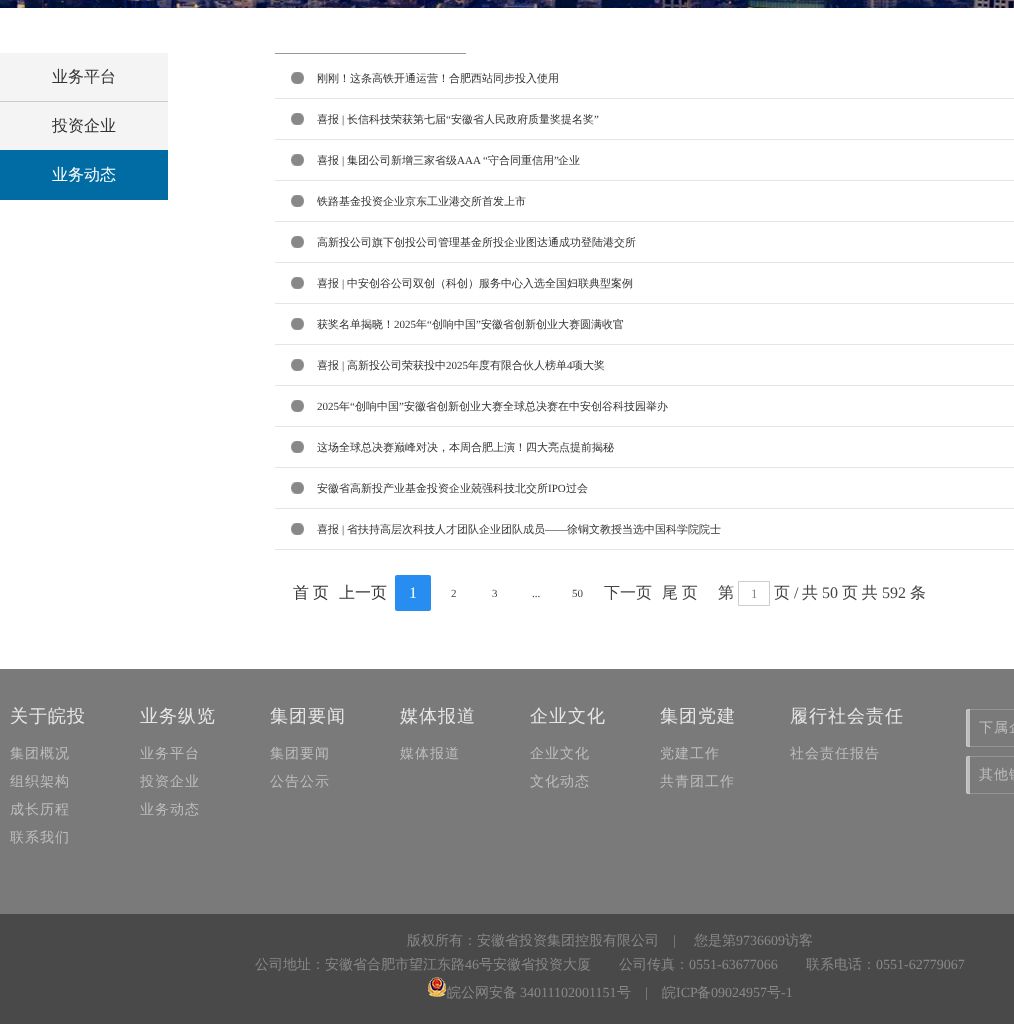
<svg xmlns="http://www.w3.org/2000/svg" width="1014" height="1024">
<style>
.a{font:500 16px WenQuanYi Zen Hei;fill:#333}
.b{font:500 16px WenQuanYi Zen Hei;fill:#fff}
.c{font:500 11px WenQuanYi Zen Hei;fill:#333}
.d{font:11px Liberation Serif;fill:#333}
.e{font:16px Liberation Serif;fill:#fff}
.f{font:11px Liberation Serif;fill:#444}
.g{font:500 16px WenQuanYi Zen Hei;fill:#444}
.h{font:13px Liberation Serif;fill:#888}
.i{font:16px Liberation Serif;fill:#444}
.j{font:500 14px WenQuanYi Zen Hei;fill:#888}
.k{font:14px Liberation Serif;fill:#888}
</style>
<rect width="100%" height="100%" fill="#fff"/>
<image href="1.png" x="0" y="0" width="1014" height="8"/>
<path fill="#f4f4f4" d="M0 53h168v97H0z"/>
<path fill="#ccc" d="M0 101h168v1H0z"/>
<path fill="#016ca4" d="M0 150h168v50H0z"/>
<path fill="#999" d="M275 53h191v1H275z"/>
<path fill="#e5e5e5" d="M275 98h739v1H275z"/>
<image href="2.png" x="291" y="72" width="13" height="12"/>
<path fill="#e5e5e5" d="M275 139h739v1H275z"/>
<image href="2.png" x="291" y="113" width="13" height="12"/>
<path fill="#e5e5e5" d="M275 180h739v1H275z"/>
<image href="2.png" x="291" y="154" width="13" height="12"/>
<path fill="#e5e5e5" d="M275 221h739v1H275z"/>
<image href="2.png" x="291" y="195" width="13" height="12"/>
<path fill="#e5e5e5" d="M275 262h739v1H275z"/>
<image href="2.png" x="291" y="236" width="13" height="12"/>
<path fill="#e5e5e5" d="M275 303h739v1H275z"/>
<image href="2.png" x="291" y="277" width="13" height="12"/>
<path fill="#e5e5e5" d="M275 344h739v1H275z"/>
<image href="2.png" x="291" y="318" width="13" height="12"/>
<path fill="#e5e5e5" d="M275 385h739v1H275z"/>
<image href="2.png" x="291" y="359" width="13" height="12"/>
<path fill="#e5e5e5" d="M275 426h739v1H275z"/>
<image href="2.png" x="291" y="400" width="13" height="12"/>
<path fill="#e5e5e5" d="M275 467h739v1H275z"/>
<image href="2.png" x="291" y="441" width="13" height="12"/>
<path fill="#e5e5e5" d="M275 508h739v1H275z"/>
<image href="2.png" x="291" y="482" width="13" height="12"/>
<path fill="#e5e5e5" d="M275 549h739v1H275z"/>
<image href="2.png" x="291" y="523" width="13" height="12"/>
<rect fill="#288df0" x="395" y="575" width="36" height="36" rx="2"/>
<path fill="none" stroke="#ccc" d="M738.5 581.5h31v24H738.5z"/>
<image href="3.png" x="0" y="669" width="1014" height="245"/>
<path fill="#494949" d="M0 914h1014v110H0z"/>
<image href="4.png" x="428" y="977" width="18" height="20"/>
<text class="a" x="52" y="82">业务平台</text>
<text class="a" x="52" y="131">投资企业</text>
<text class="b" x="52" y="180">业务动态</text>
<text class="c" x="317" y="82">刚刚！这条高铁开通运营！合肥西站同步投入使用</text>
<text class="c" x="317" y="123">喜报</text>
<text class="d" x="342" y="123">|</text>
<text class="c" x="347" y="123">长信科技荣获第七届</text>
<text class="d" x="446" y="123">“</text>
<text class="c" x="451" y="123">安徽省人民政府质量奖提名奖</text>
<text class="d" x="594" y="123">”</text>
<text class="c" x="317" y="164">喜报</text>
<text class="d" x="342" y="164">|</text>
<text class="c" x="347" y="164">集团公司新增三家省级</text>
<text class="d" x="457" y="164">AAA “</text>
<text class="c" x="488" y="164">守合同重信用</text>
<text class="d" x="554" y="164">”</text>
<text class="c" x="558" y="164">企业</text>
<text class="c" x="317" y="205">铁路基金投资企业京东工业港交所首发上市</text>
<text class="c" x="317" y="246">高新投公司旗下创投公司管理基金所投企业图达通成功登陆港交所</text>
<text class="c" x="317" y="287">喜报</text>
<text class="d" x="342" y="287">|</text>
<text class="c" x="347" y="287">中安创谷公司双创（科创）服务中心入选全国妇联典型案例</text>
<text class="c" x="317" y="328">获奖名单揭晓！</text>
<text class="d" x="394" y="328">2025</text>
<text class="c" x="416" y="328">年</text>
<text class="d" x="427" y="328">“</text>
<text class="c" x="432" y="328">创响中国</text>
<text class="d" x="476" y="328">”</text>
<text class="c" x="481" y="328">安徽省创新创业大赛圆满收官</text>
<text class="c" x="317" y="369">喜报</text>
<text class="d" x="342" y="369">|</text>
<text class="c" x="347" y="369">高新投公司荣获投中</text>
<text class="d" x="446" y="369">2025</text>
<text class="c" x="468" y="369">年度有限合伙人榜单</text>
<text class="d" x="567" y="369">4</text>
<text class="c" x="572" y="369">项大奖</text>
<text class="d" x="317" y="410">2025</text>
<text class="c" x="339" y="410">年</text>
<text class="d" x="350" y="410">“</text>
<text class="c" x="355" y="410">创响中国</text>
<text class="d" x="399" y="410">”</text>
<text class="c" x="404" y="410">安徽省创新创业大赛全球总决赛在中安创谷科技园举办</text>
<text class="c" x="317" y="451">这场全球总决赛巅峰对决，本周合肥上演！四大亮点提前揭秘</text>
<text class="c" x="317" y="492">安徽省高新投产业基金投资企业兢强科技北交所</text>
<text class="d" x="548" y="492">IPO</text>
<text class="c" x="566" y="492">过会</text>
<text class="c" x="317" y="533">喜报</text>
<text class="d" x="342" y="533">|</text>
<text class="c" x="347" y="533">省扶持高层次科技人才团队企业团队成员</text>
<text class="d" x="545" y="533">——</text>
<text class="c" x="567" y="533">徐铜文教授当选中国科学院院士</text>
<text class="a" x="293" y="598" word-spacing="-1">首 页</text>
<text class="a" x="339" y="598">上一页</text>
<text class="e" x="409" y="598">1</text>
<text class="f" x="451" y="597">2</text>
<text class="f" x="492" y="597">3</text>
<text class="f" x="532" y="597">...</text>
<text class="f" x="572" y="597">50</text>
<text class="g" x="604" y="598">下一页</text>
<text class="g" x="662" y="598" word-spacing="-1">尾 页</text>
<text class="g" x="718" y="598">第</text>
<text class="h" x="751" y="598">1</text>
<text class="g" x="774" y="598">页</text>
<text class="i" x="794" y="598">/</text>
<text class="g" x="802" y="598">共</text>
<text class="i" x="822" y="598">50</text>
<text class="g" x="842" y="598" word-spacing="-1">页 共</text>
<text class="i" x="882" y="598">592</text>
<text class="g" x="910" y="598">条</text>
<text class="j" x="407" y="945">版权所有：安徽省投资集团控股有限公司</text>
<text class="k" x="673" y="945">|</text>
<text class="j" x="694" y="945">您是第</text>
<text class="k" x="736" y="945">9736609</text>
<text class="j" x="785" y="945">访客</text>
<text class="j" x="255" y="969">公司地址：安徽省合肥市望江东路</text>
<text class="k" x="465" y="969">46</text>
<text class="j" x="479" y="969">号安徽省投资大厦　　公司传真：</text>
<text class="k" x="689" y="969">0551-63677066</text>
<text class="j" x="806" y="969">联系电话：</text>
<text class="k" x="876" y="969">0551-62779067</text>
<text class="j" x="447" y="997">皖公网安备</text>
<text class="k" x="520" y="997">34011102001151</text>
<text class="j" x="617" y="997">号</text>
<text class="k" x="645" y="997">|</text>
<text class="j" x="662" y="997">皖</text>
<text class="k" x="676" y="997">ICP</text>
<text class="j" x="697" y="997">备</text>
<text class="k" x="711" y="997">09024957</text>
<text class="j" x="767" y="997">号</text>
<text class="k" x="781" y="997">-1</text>
</svg>
